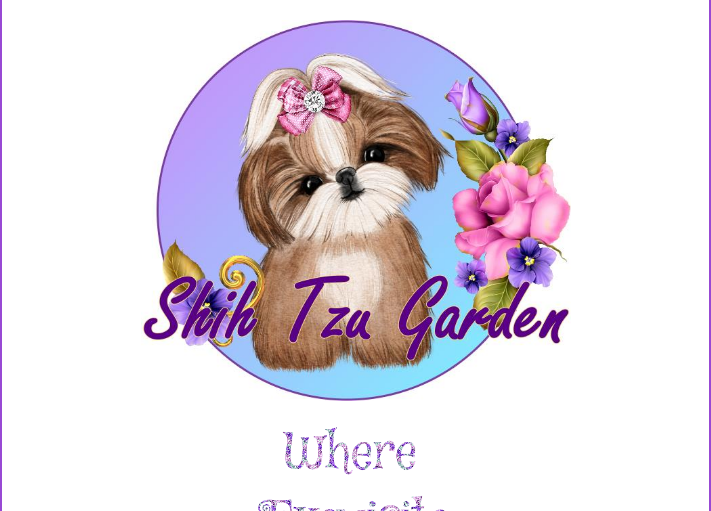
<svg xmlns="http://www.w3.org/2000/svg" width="711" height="511">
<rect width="100%" height="100%" fill="#fff"/>
<path fill="#9849d4" d="M709 0h2v511H709z"/>
<path fill="#9849d4" d="M0 0h2v511H0z"/>
<image href="1.png" x="141" y="20" width="430" height="381"/>
<image href="2.png" x="258" y="427" width="187" height="84"/>
</svg>
